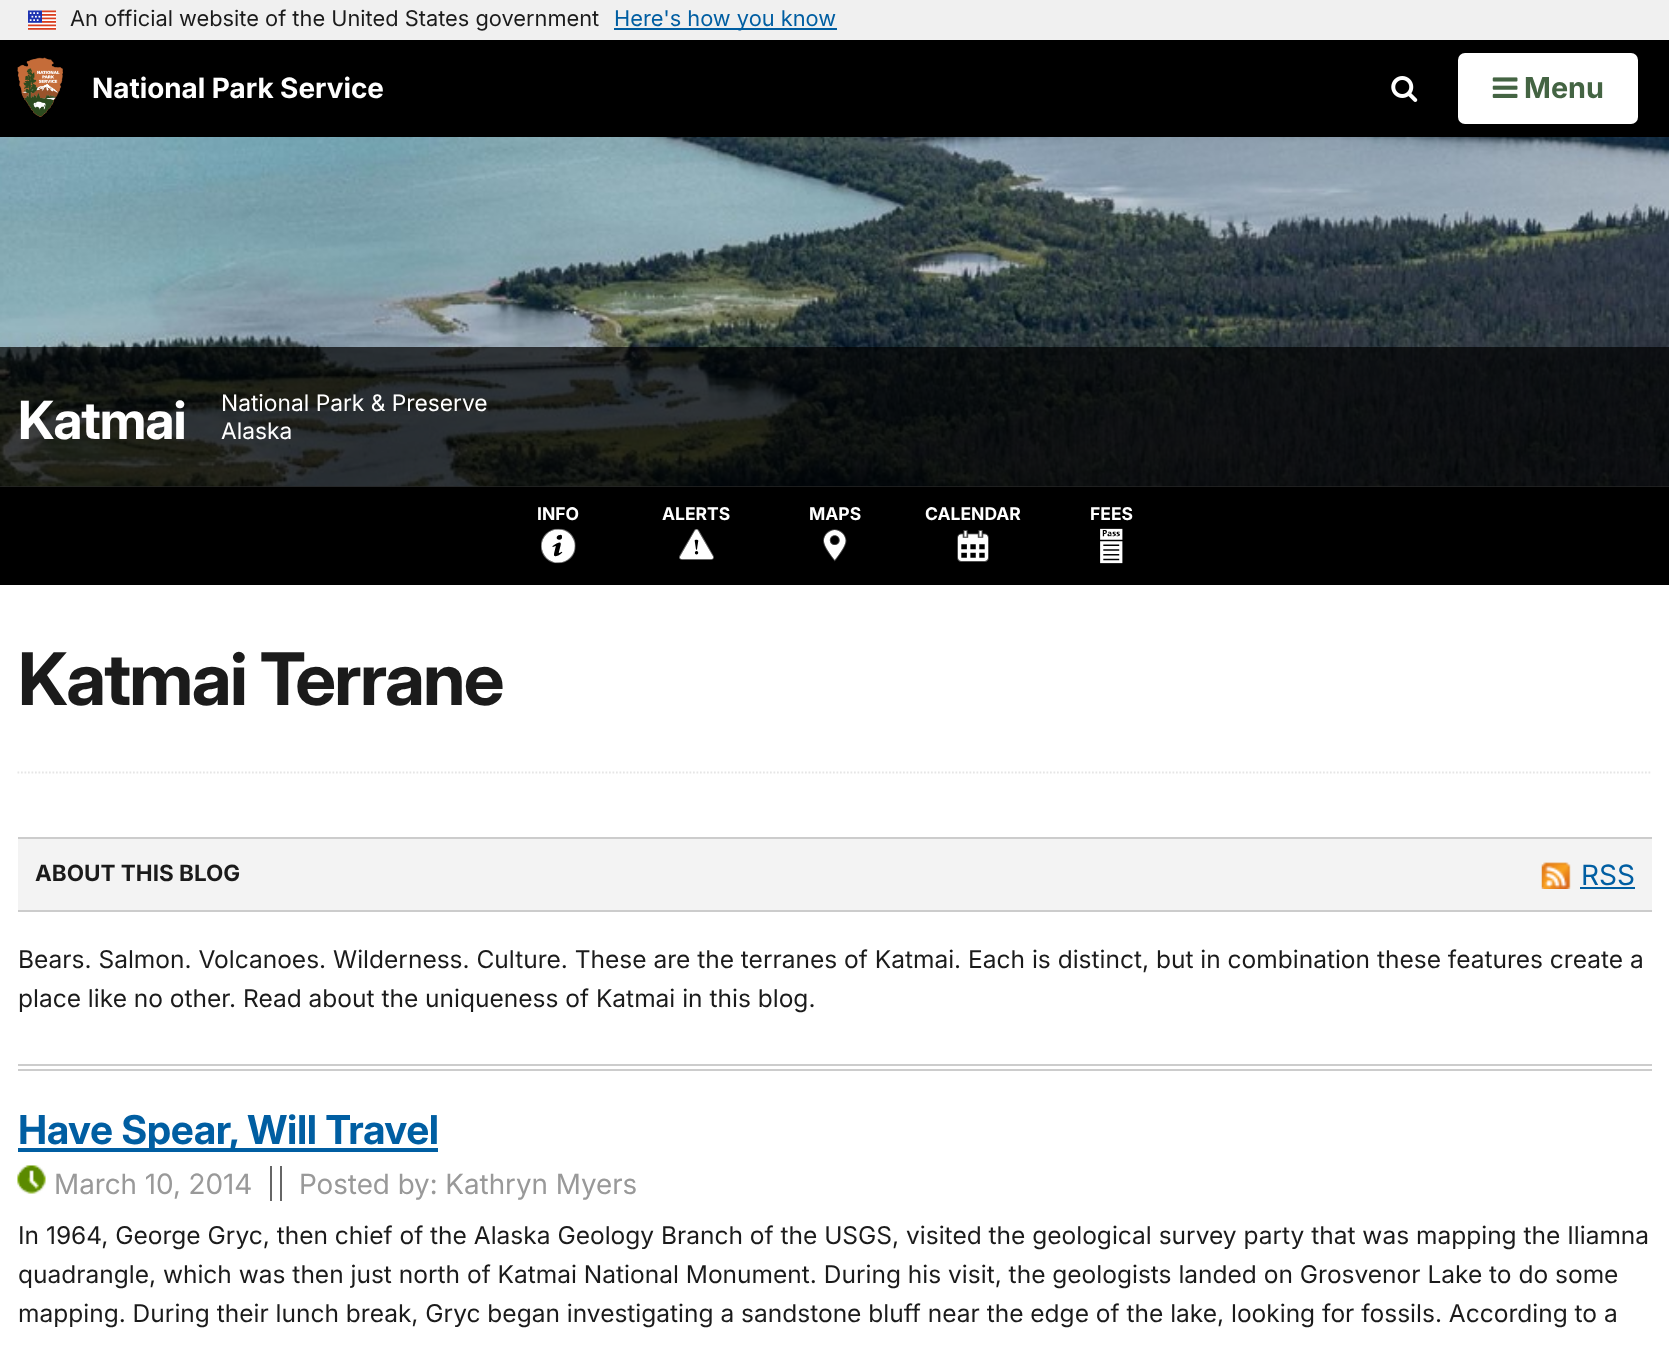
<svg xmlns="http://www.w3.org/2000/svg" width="1669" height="1346">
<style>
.a{font:21.8px Inter;fill:#1b1b1b}
.b{font:21.8px Inter;fill:#005ea2}
.c{font:bold 28px 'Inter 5';fill:#fff}
.d{font:bold 29px 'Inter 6';fill:#446443}
.e{font:bold 52.5px 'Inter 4';letter-spacing:-1px;fill:#fff}
.f{font:22.75px Inter;fill:#fff}
.g{font:bold 17.5px 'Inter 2';fill:#fff}
.h{font:bold 72.5px Inter;letter-spacing:-1.75px;fill:#1b1b1b}
.i{font:bold 22.5px 'Inter 2';fill:#1b1b1b}
.j{font:24.5px Inter;fill:#1b1b1b}
.k{font:28px Inter;fill:#005ea2}
.l{font:bold 39.75px 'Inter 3';letter-spacing:-0.4px;fill:#005ea2}
.m{font:28px 'Inter 2';fill:#999}
</style>
<rect width="100%" height="100%" fill="#fff"/>
<path fill="#f0f0f0" d="M0 0h1669v40H0z"/>
<image href="1.png" x="28" y="10" width="28" height="20"/>
<path fill="#005ea2" d="M614 28h223v2H614z"/>
<path fill="#000" d="M0 40h1669v97H0z"/>
<image href="2.png" x="17" y="57" width="46" height="60"/>
<image href="3.png" x="1391" y="76" width="27" height="26"/>
<rect fill="#fff" x="1458" y="53" width="180" height="71" rx="7"/>
<image href="4.png" x="1492" y="77" width="26" height="21"/>
<path fill="#808080" d="M0 486h1669v1H0z"/>
<image href="5.png" x="0" y="137" width="1669" height="350"/>
<path fill="#000000b3" d="M0 347h1669v140H0z"/>
<path fill="#000" d="M0 487h1669v98H0z"/>
<image href="6.png" x="541" y="528" width="35" height="36"/>
<image href="7.png" x="679" y="529" width="35" height="31"/>
<image href="8.png" x="823" y="529" width="24" height="33"/>
<image href="9.png" x="957" y="530" width="32" height="32"/>
<image href="10.png" x="1100" y="528" width="23" height="36"/>
<path fill="none" stroke="#e6e6e6" stroke-width="1.8" stroke-dasharray="1.75 1.75" d="M17.5 772.5h1634.5"/>
<path fill="#ccc" d="M18 1064h1634v2H18z"/>
<path fill="#ccc" d="M18 1069h1634v2H18z"/>
<path fill="#f3f3f3" d="M18 839h1634v71H18z"/>
<path fill="#ccc" d="M18 837h1634v2H18z"/>
<path fill="#ccc" d="M18 910h1634v2H18z"/>
<image href="11.png" x="1541" y="862" width="30" height="27"/>
<path fill="#005ea2" d="M1580 887h55v2H1580z"/>
<path fill="#005ea2" d="M18 1148h420v4H18z"/>
<image href="12.png" x="17" y="1165" width="29" height="29"/>
<path fill="#666" d="M270 1166h2v35H270z"/>
<path fill="#666" d="M280 1166h2v35H280z"/>
<text class="a" x="70" y="26">An official website of the United States government</text>
<text class="b" x="614" y="26">Here's how you know</text>
<text class="c" x="92" y="98">National Park Service</text>
<text class="d" x="1524" y="98">Menu</text>
<text class="e" x="18" y="439">Katmai</text>
<text class="f" x="221" y="411">National Park &amp; Preserve</text>
<text class="f" x="221" y="439">Alaska</text>
<text class="g" x="537" y="520">INFO</text>
<text class="g" x="662" y="520">ALERTS</text>
<text class="g" x="809" y="520">MAPS</text>
<text class="g" x="925" y="520">CALENDAR</text>
<text class="g" x="1090" y="520">FEES</text>
<text class="h" x="18" y="705">Katmai Terrane</text>
<text class="i" x="35" y="881">ABOUT THIS BLOG</text>
<text class="j" x="18" y="968">Bears. Salmon. Volcanoes. Wilderness. Culture. These are the terranes of Katmai. Each is distinct, but in combination these features create a</text>
<text class="j" x="18" y="1007">place like no other. Read about the uniqueness of Katmai in this blog.</text>
<text class="k" x="1581" y="885">RSS</text>
<text class="l" x="18" y="1144">Have Spear, Will Travel</text>
<text class="m" x="54" y="1194">March 10, 2014</text>
<text class="m" x="299" y="1194">Posted by: Kathryn Myers</text>
<text class="j" x="18" y="1244">In 1964, George Gryc, then chief of the Alaska Geology Branch of the USGS, visited the geological survey party that was mapping the Iliamna</text>
<text class="j" x="18" y="1283">quadrangle, which was then just north of Katmai National Monument. During his visit, the geologists landed on Grosvenor Lake to do some</text>
<text class="j" x="18" y="1322">mapping. During their lunch break, Gryc began investigating a sandstone bluff near the edge of the lake, looking for fossils. According to a</text>
</svg>
